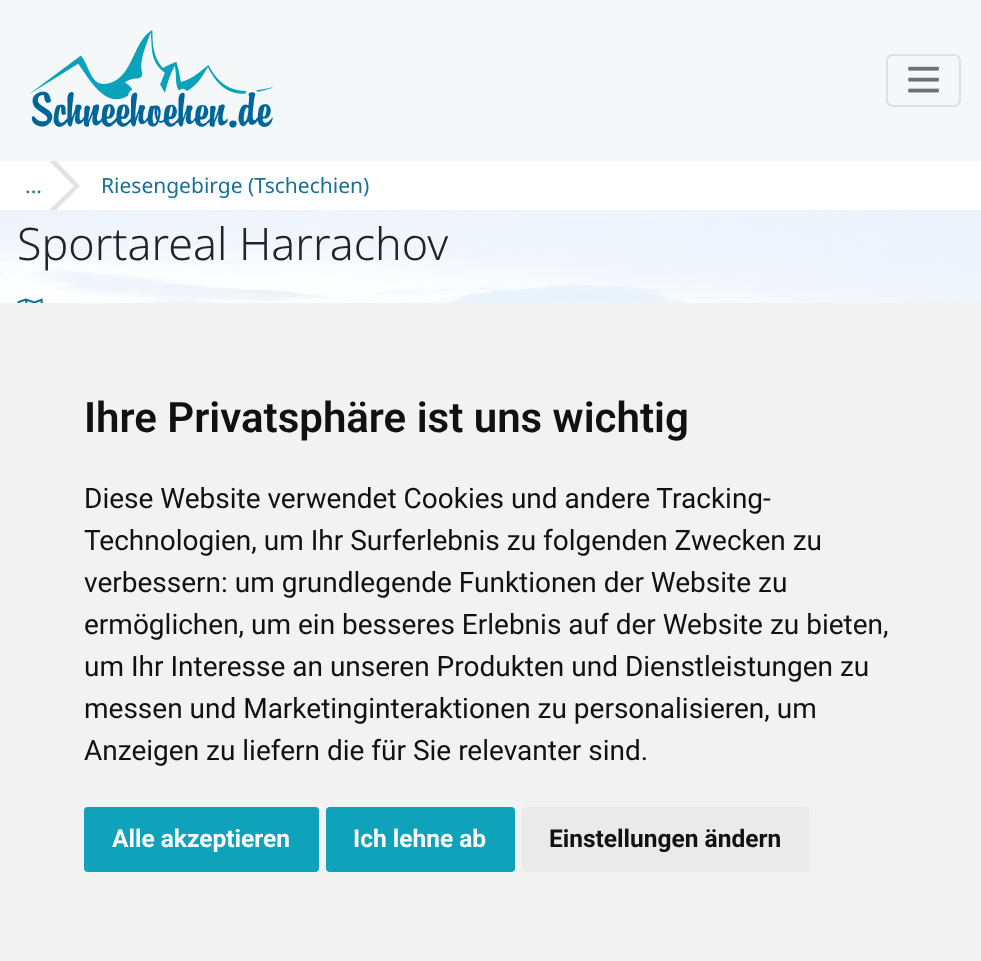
<svg xmlns="http://www.w3.org/2000/svg" width="981" height="961">
<style>
.a{font:21px Noto Sans;fill:#167199}
.b{font:300 44.75px Noto Sans;fill:#212529}
.c{font:600 42px Roboto;fill:#111}
.d{font:28px Roboto;fill:#111}
.e{font:bold 24.5px Roboto;fill:#fff}
.f{font:bold 24.5px Roboto;fill:#111}
</style>
<rect width="100%" height="100%" fill="#fff"/>
<image href="1.png" x="0" y="210" width="981" height="93"/>
<path fill="#f5f8f9" d="M0 0h981v161H0z"/>
<image href="2.png" x="30" y="30" width="243" height="98"/>
<rect fill="none" stroke="#dddfe0" stroke-width="2" x="887" y="55" width="73" height="51" rx="6"/>
<image href="3.png" x="908" y="66" width="31" height="27"/>
<path fill="#ffffffb3" d="M0 210h981v93H0z"/>
<path fill="#e3e3e3" d="M49 161h7v49H49z"/>
<path fill="#e3e3e3" d="M56 210v-49l24 25z"/>
<path fill="#fff" d="M49 210v-49l25 25z"/>
<image href="4.png" x="17" y="298" width="26" height="5"/>
<path fill="#f2f2f2" d="M0 303h981v658H0z"/>
<rect fill="#0ea2bb" x="84" y="807" width="235" height="65" rx="4"/>
<rect fill="#0ea2bb" x="326" y="807" width="189" height="65" rx="4"/>
<rect fill="#eaeaea" x="522" y="807" width="287" height="65" rx="4"/>
<text class="a" x="25" y="193">...</text>
<text class="a" x="101" y="193">Riesengebirge (Tschechien)</text>
<text class="b" x="17" y="260">Sportareal Harrachov</text>
<text class="c" x="84" y="432">Ihre Privatsphäre ist uns wichtig</text>
<text class="d" x="84" y="508">Diese Website verwendet Cookies und andere Tracking-</text>
<text class="d" x="84" y="550">Technologien, um Ihr Surferlebnis zu folgenden Zwecken zu</text>
<text class="d" x="84" y="592">verbessern: um grundlegende Funktionen der Website zu</text>
<text class="d" x="84" y="634">ermöglichen, um ein besseres Erlebnis auf der Website zu bieten,</text>
<text class="d" x="84" y="676">um Ihr Interesse an unseren Produkten und Dienstleistungen zu</text>
<text class="d" x="84" y="718">messen und Marketinginteraktionen zu personalisieren, um</text>
<text class="d" x="84" y="760">Anzeigen zu liefern die für Sie relevanter sind.</text>
<text class="e" x="112" y="847">Alle akzeptieren</text>
<text class="e" x="353" y="847">Ich lehne ab</text>
<text class="f" x="549" y="847">Einstellungen ändern</text>
</svg>
